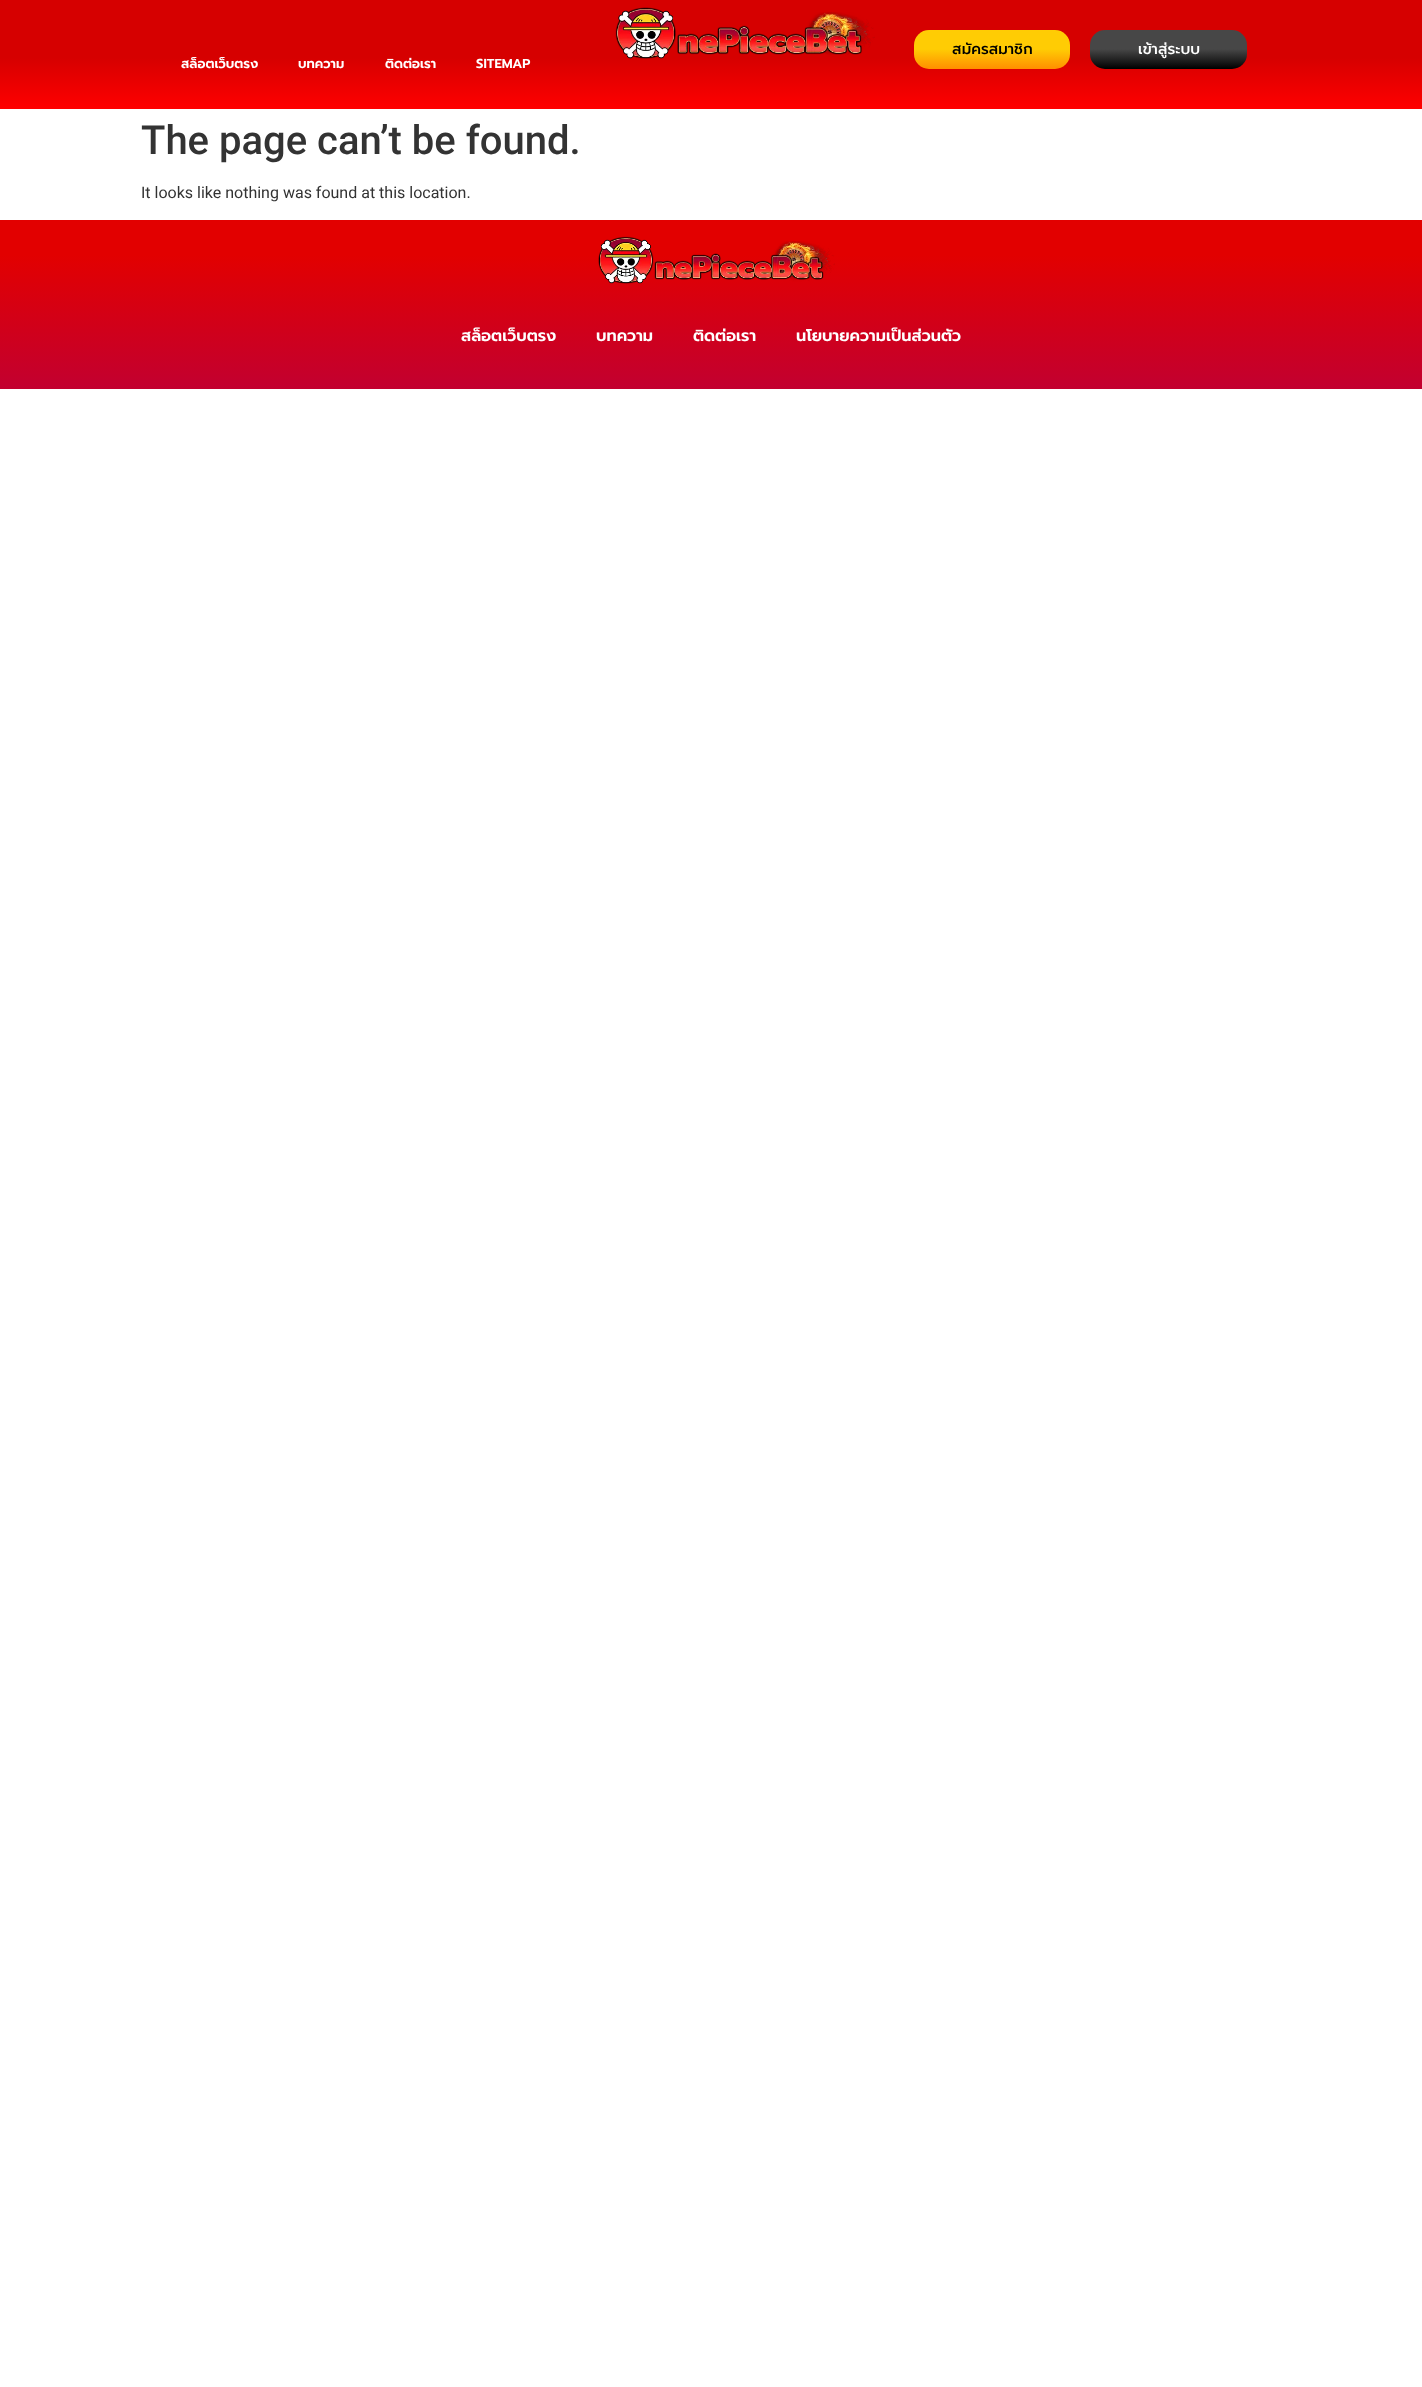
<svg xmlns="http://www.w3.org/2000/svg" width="1422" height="2387">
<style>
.a{font:500 15px Prompt;fill:#000}
.b{font:500 15px Prompt;fill:#fff}
.c{font:600 13px Prompt;fill:#fff}
.d{font:500 40px Roboto;fill:#333}
.e{font:16px Roboto;fill:#333}
.f{font:600 16px Prompt;fill:#fff}
</style>
<defs>
<linearGradient id="g1" gradientUnits="userSpaceOnUse" x1="711" y1="0" x2="711" y2="109"><stop offset="0.53" stop-color="#d60000"/><stop offset="1" stop-color="#f00"/></linearGradient>
<linearGradient id="g2" gradientUnits="userSpaceOnUse" x1="992" y1="30" x2="992" y2="69"><stop offset="0.49" stop-color="#ffcc04"/><stop offset="1" stop-color="#ff8f00"/></linearGradient>
<linearGradient id="g3" gradientUnits="userSpaceOnUse" x1="1169" y1="30" x2="1169" y2="69"><stop offset="0.49" stop-color="#474747"/><stop offset="1" stop-color="#000"/></linearGradient>
<linearGradient id="g4" gradientUnits="userSpaceOnUse" x1="711" y1="220" x2="711" y2="389"><stop offset="0.21" stop-color="#e20000"/><stop offset="1" stop-color="#c20030"/></linearGradient>
</defs>
<rect width="100%" height="100%" fill="#fff"/>
<path fill="url(#g1)" d="M0 0h1422v109H0z"/>
<image href="1.png" x="615" y="7" width="260" height="52"/>
<rect fill="url(#g2)" x="914" y="30" width="156" height="39" rx="15"/>
<rect fill="url(#g3)" x="1090" y="30" width="157" height="39" rx="15"/>
<path fill="url(#g4)" d="M0 220h1422v169H0z"/>
<image href="2.png" x="598" y="236" width="237" height="48"/>
<text class="a" x="952" y="54">สมัครสมาชิก</text>
<text class="b" x="1138" y="54">เข้าสู่ระบบ</text>
<text class="c" x="181" y="68">สล็อตเว็บตรง</text>
<text class="c" x="298" y="68">บทความ</text>
<text class="c" x="385" y="68">ติดต่อเรา</text>
<text class="c" x="476" y="68">SITEMAP</text>
<text class="d" x="141" y="154">The page can’t be found.</text>
<text class="e" x="141" y="198">It looks like nothing was found at this location.</text>
<text class="f" x="461" y="341">สล็อตเว็บตรง</text>
<text class="f" x="596" y="341">บทความ</text>
<text class="f" x="693" y="341">ติดต่อเรา</text>
<text class="f" x="796" y="341">นโยบายความเป็นส่วนตัว</text>
</svg>
